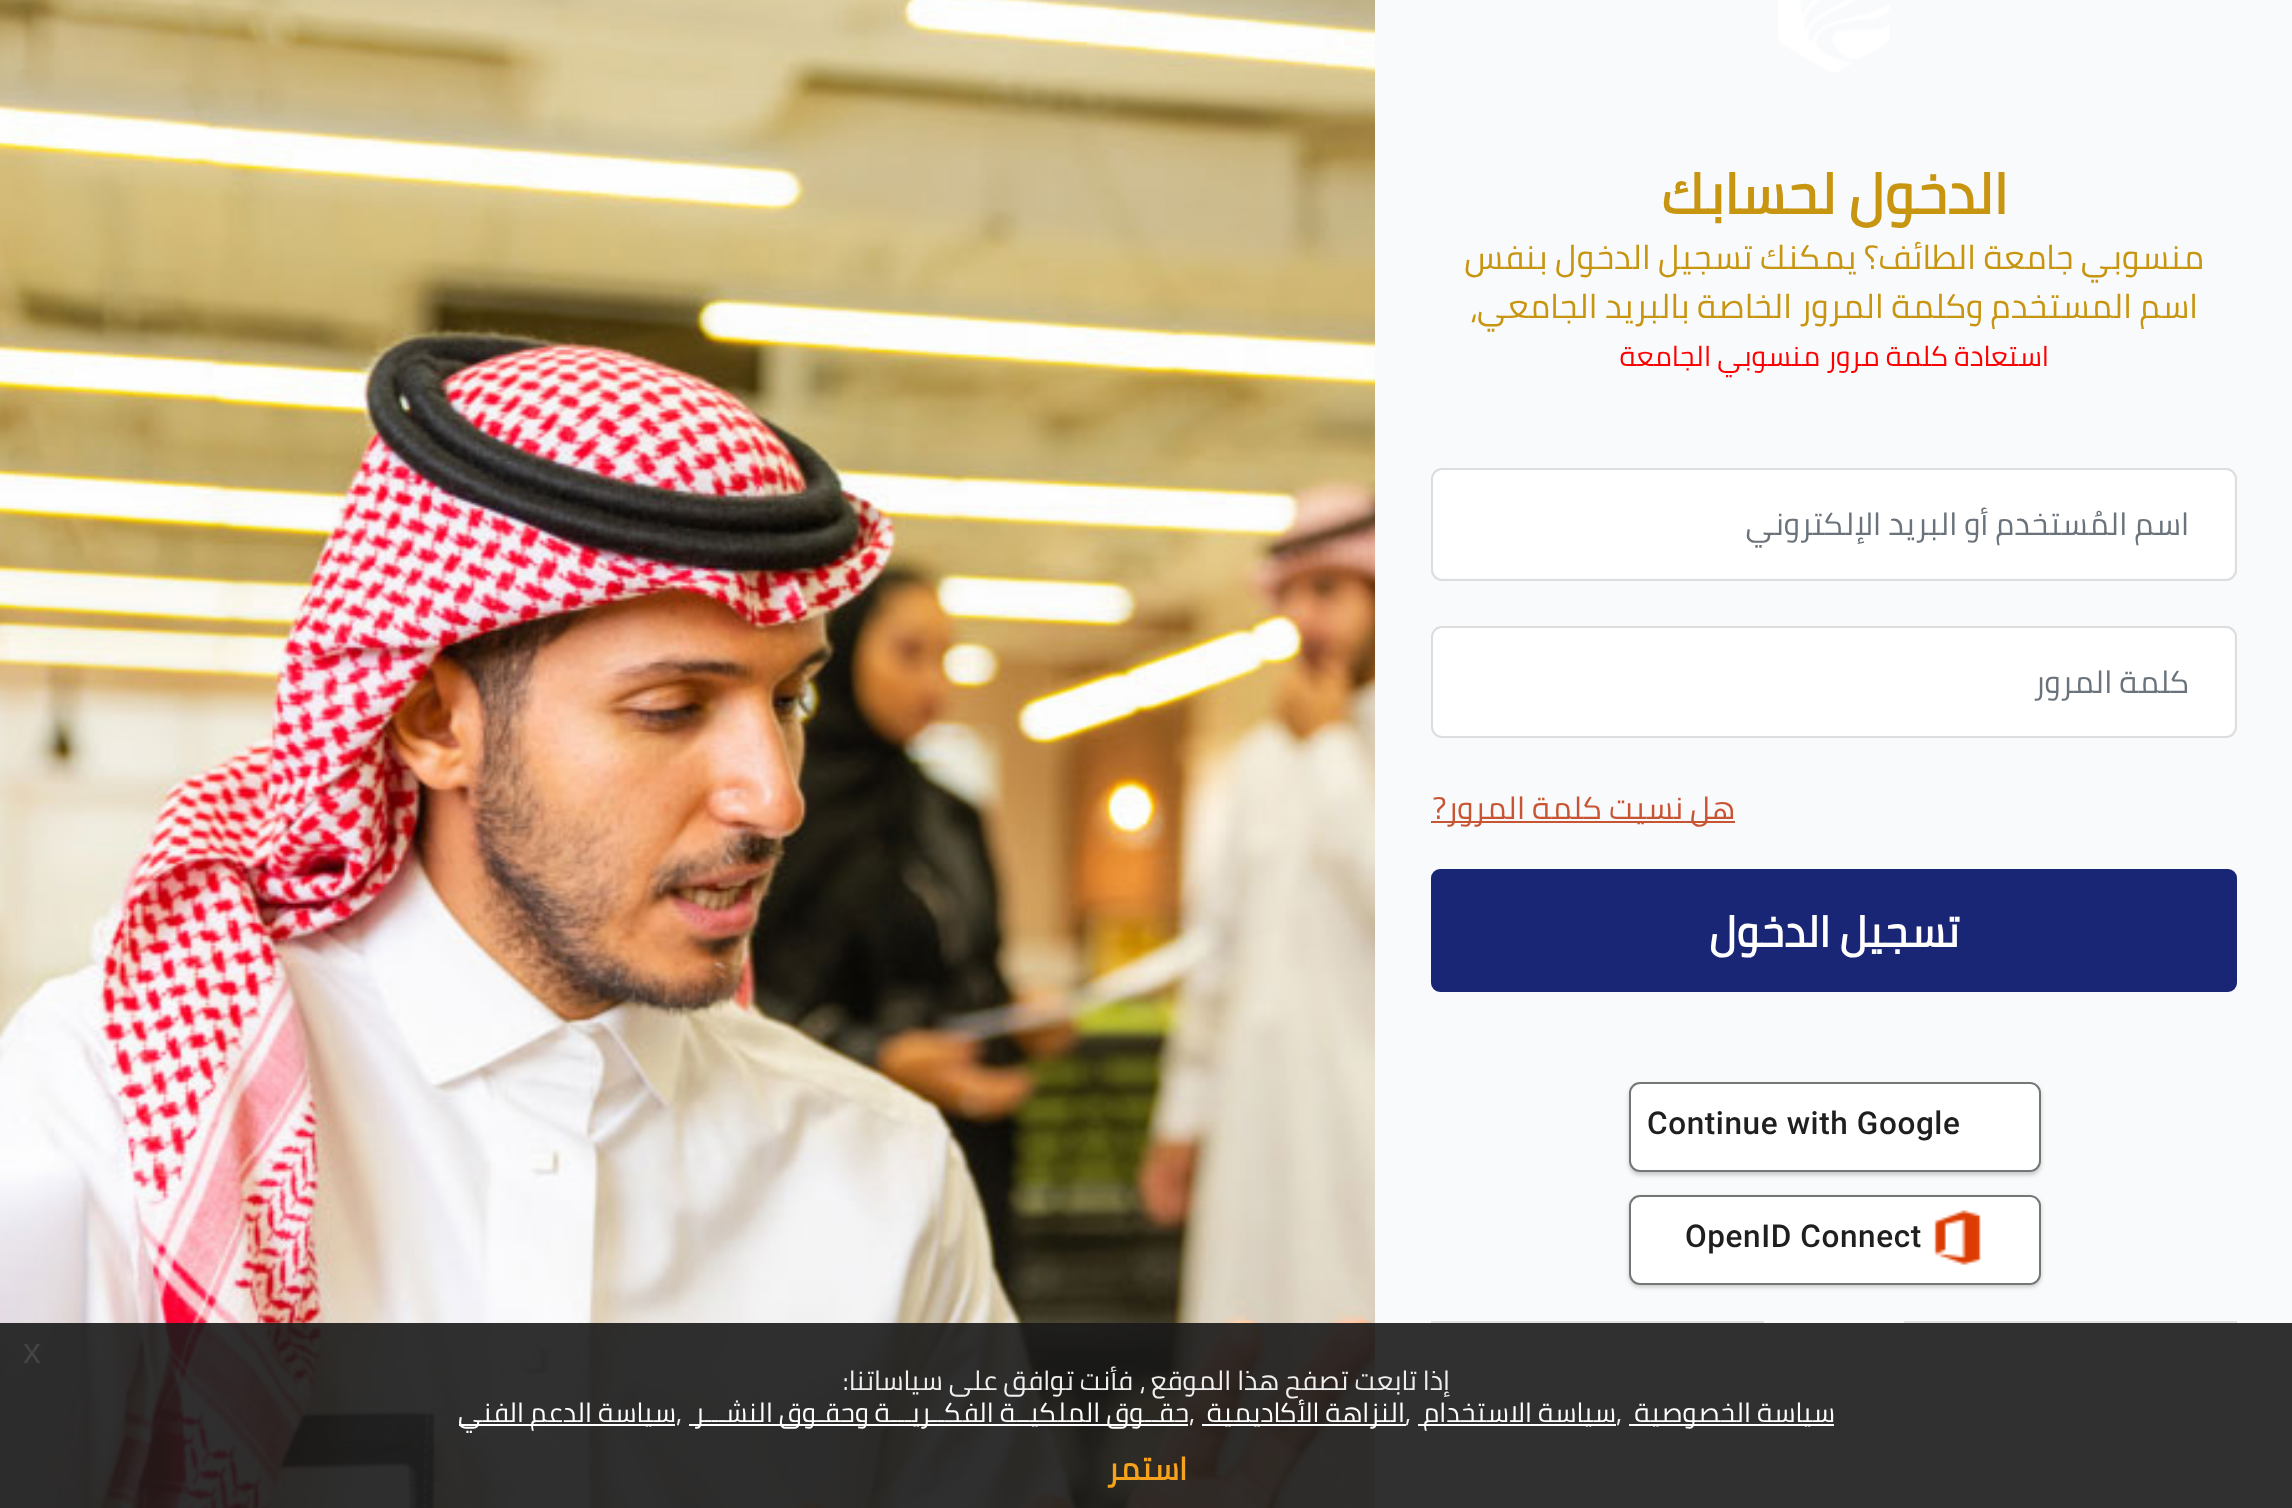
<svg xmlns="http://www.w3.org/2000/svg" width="2292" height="1508">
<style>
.a{font:bold 56.25px Cairo;direction:rtl;fill:#c79510}
.b{font:33.75px Cairo;direction:rtl;fill:#c79510}
.c{font:28.1px Cairo;direction:rtl;fill:#f00}
.d{font:31.5px Cairo;direction:rtl;fill:#6a737b}
.e{font:31.5px Cairo;direction:rtl;fill:#c75533}
.f{font:bold 42.75px Cairo;direction:rtl;fill:#fff}
.g{font:500 31.5px Roboto;letter-spacing:0.6px;fill:#1f1f1f}
.h{font:36px Liberation Sans;fill:#454444}
.i{font:27px Cairo;direction:rtl;fill:#efefef}
.j{font:27px Cairo;direction:rtl;fill:#fff}
.k{font:27px Cairo;fill:#efefef}
.l{font:bold 31.5px Cairo;direction:rtl;fill:#f6a21d}
</style>
<rect width="100%" height="100%" fill="#fff"/>
<path fill="#f9fafc" d="M1375 0h917v1508H1375z"/>
<image href="1.png" x="1778" y="0" width="112" height="72"/>
<rect fill="#fff" x="1433" y="470" width="801" height="108" rx="9"/>
<rect fill="none" stroke="#ddd" stroke-width="2" x="1432" y="469" width="804" height="111" rx="10"/>
<rect fill="#fff" x="1433" y="628" width="801" height="108" rx="9"/>
<rect fill="none" stroke="#ddd" stroke-width="2" x="1432" y="627" width="804" height="110" rx="10"/>
<path fill="#c75533" d="M1431 821h304v2H1431z"/>
<rect fill="#192675" stroke="#192675" stroke-width="2" x="1432" y="870" width="804" height="121" rx="8"/>
<rect fill="#00000033" filter="blur(2px)" x="1629" y="1085" width="412" height="90" rx="11"/>
<rect fill="#fff" stroke="#747775" stroke-width="2" x="1630" y="1083" width="410" height="88" rx="10"/>
<rect fill="#00000033" filter="blur(2px)" x="1629" y="1197" width="412" height="90" rx="11"/>
<rect fill="#fff" stroke="#747775" stroke-width="2" x="1630" y="1196" width="410" height="88" rx="10"/>
<image href="2.png" x="1934" y="1210" width="47" height="55"/>
<path fill="#e0e1e3" d="M1431 1321h806v2H1431z"/>
<path fill="#f9fafc" d="M1764 1321h140v2H1764z"/>
<image href="3.png" x="0" y="0" width="1375" height="1508"/>
<path fill="#191919e6" d="M0 1323h2292v185H0z"/>
<path fill="#fff" d="M1629 1424h205v2H1629z"/>
<path fill="#fff" d="M1418 1424h198v2H1418z"/>
<path fill="#fff" d="M1202 1424h204v2H1202z"/>
<path fill="#fff" d="M689 1424h499v2H689z"/>
<path fill="#fff" d="M459 1424h216v2H459z"/>
<text class="a" x="2008" y="214">الدخول لحسابك</text>
<text class="b" x="2204" y="269">منسوبي جامعة الطائف؟ يمكنك تسجيل الدخول بنفس</text>
<text class="b" x="2198" y="318">اسم المستخدم وكلمة المرور الخاصة بالبريد الجامعي،</text>
<text class="c" x="2049" y="366">استعادة كلمة مرور منسوبي الجامعة</text>
<text class="d" x="2189" y="535">اسم المُستخدم أو البريد الإلكتروني</text>
<text class="d" x="2189" y="693">كلمة المرور</text>
<text class="e" x="1735" y="819">هل نسيت كلمة المرور?</text>
<text class="f" x="1959" y="947">تسجيل الدخول</text>
<text class="g" x="1647" y="1134">Continue with Google</text>
<text class="g" x="1685" y="1247">OpenID Connect</text>
<text class="h" x="23" y="1363">x</text>
<text class="i" x="1450" y="1390">إذا تابعت تصفح هذا الموقع ، فأنت توافق على سياساتنا:</text>
<text class="j" x="1835" y="1422">سياسة الخصوصية</text>
<text class="k" x="1616" y="1422">,</text>
<text class="j" x="1616" y="1422">سياسة الاستخدام</text>
<text class="k" x="1405" y="1422">,</text>
<text class="j" x="1405" y="1422">النزاهة الأكاديمية</text>
<text class="k" x="1189" y="1422">,</text>
<text class="j" x="1189" y="1422">حقــوق الملكيــة الفكــريـــة وحقـوق النشـــر</text>
<text class="k" x="676" y="1422">,</text>
<text class="j" x="676" y="1422">سياسة الدعم الفني</text>
<text class="l" x="1187" y="1480">استمر</text>
</svg>
